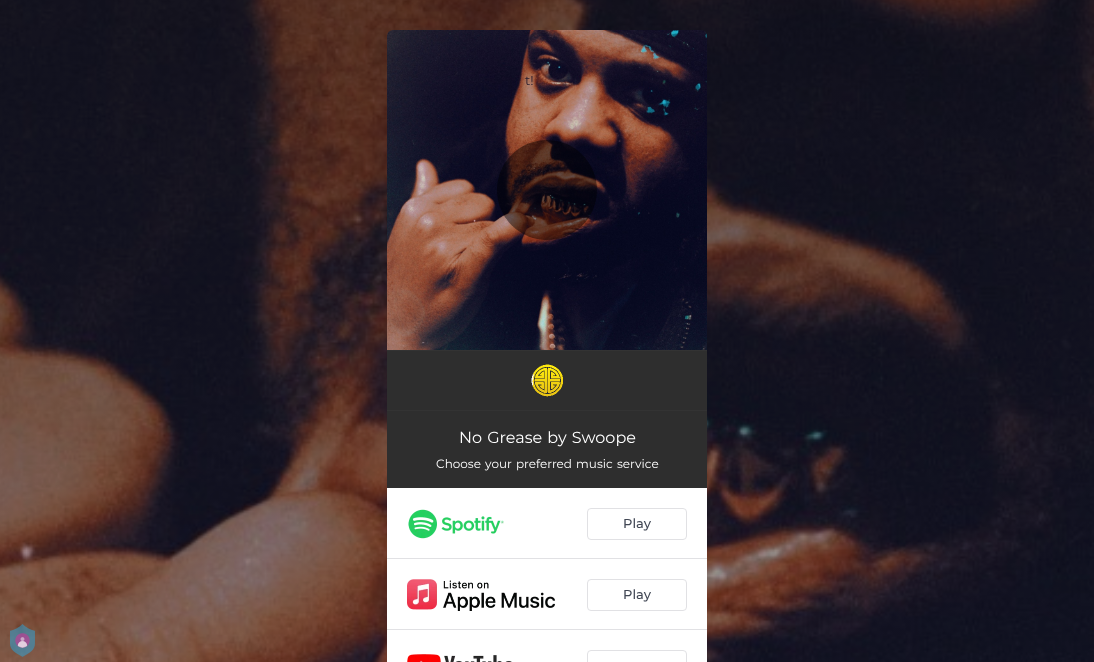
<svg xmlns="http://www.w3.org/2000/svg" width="1094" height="662">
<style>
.a{font:13px Montserrat;fill:#271b2b}
.b{font:16px Montserrat;fill:#fff}
.c{font:12px Montserrat;fill:#fff}
.d{font:500 13px Montserrat;fill:#414754}
</style>
<rect width="100%" height="100%" fill="#fff"/>
<image href="1.png" x="0" y="0" width="1094" height="662"/>
<image href="2.png" x="387" y="30" width="320" height="320"/>
<circle fill="#00000073" cx="547" cy="190" r="50"/>
<path fill="#2e2e2e" d="M387 351h320v59H387z"/>
<path fill="#333" d="M387 350h320v1H387z"/>
<path fill="#333" d="M387 410h320v1H387z"/>
<image href="3.png" x="531" y="364" width="32" height="33"/>
<path fill="#2e2e2e" d="M387 411h320v77H387z"/>
<path fill="#fff" d="M387 488h320v174H387z"/>
<path fill="#e1e1e4" d="M387 558h320v1H387z"/>
<image href="4.png" x="408" y="509" width="96" height="30"/>
<rect fill="none" stroke="#e1e1e4" x="587.5" y="508.5" width="99" height="31" rx="3.5"/>
<path fill="#e1e1e4" d="M387 629h320v1H387z"/>
<image href="5.png" x="407" y="579" width="148" height="32"/>
<rect fill="none" stroke="#e1e1e4" x="587.5" y="579.5" width="99" height="31" rx="3.5"/>
<image href="6.png" x="407" y="654" width="105" height="8"/>
<rect fill="none" stroke="#e1e1e4" x="587.5" y="650.5" width="99" height="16" rx="3.5"/>
<image href="7.png" x="10" y="624" width="25" height="33"/>
<text class="a" x="525" y="85" word-spacing="1">t!</text>
<text class="b" x="459" y="443" word-spacing="1">No Grease by Swoope</text>
<text class="c" x="436" y="468" word-spacing="1">Choose your preferred music service</text>
<text class="d" x="623" y="528">Play</text>
<text class="d" x="623" y="599">Play</text>
</svg>
